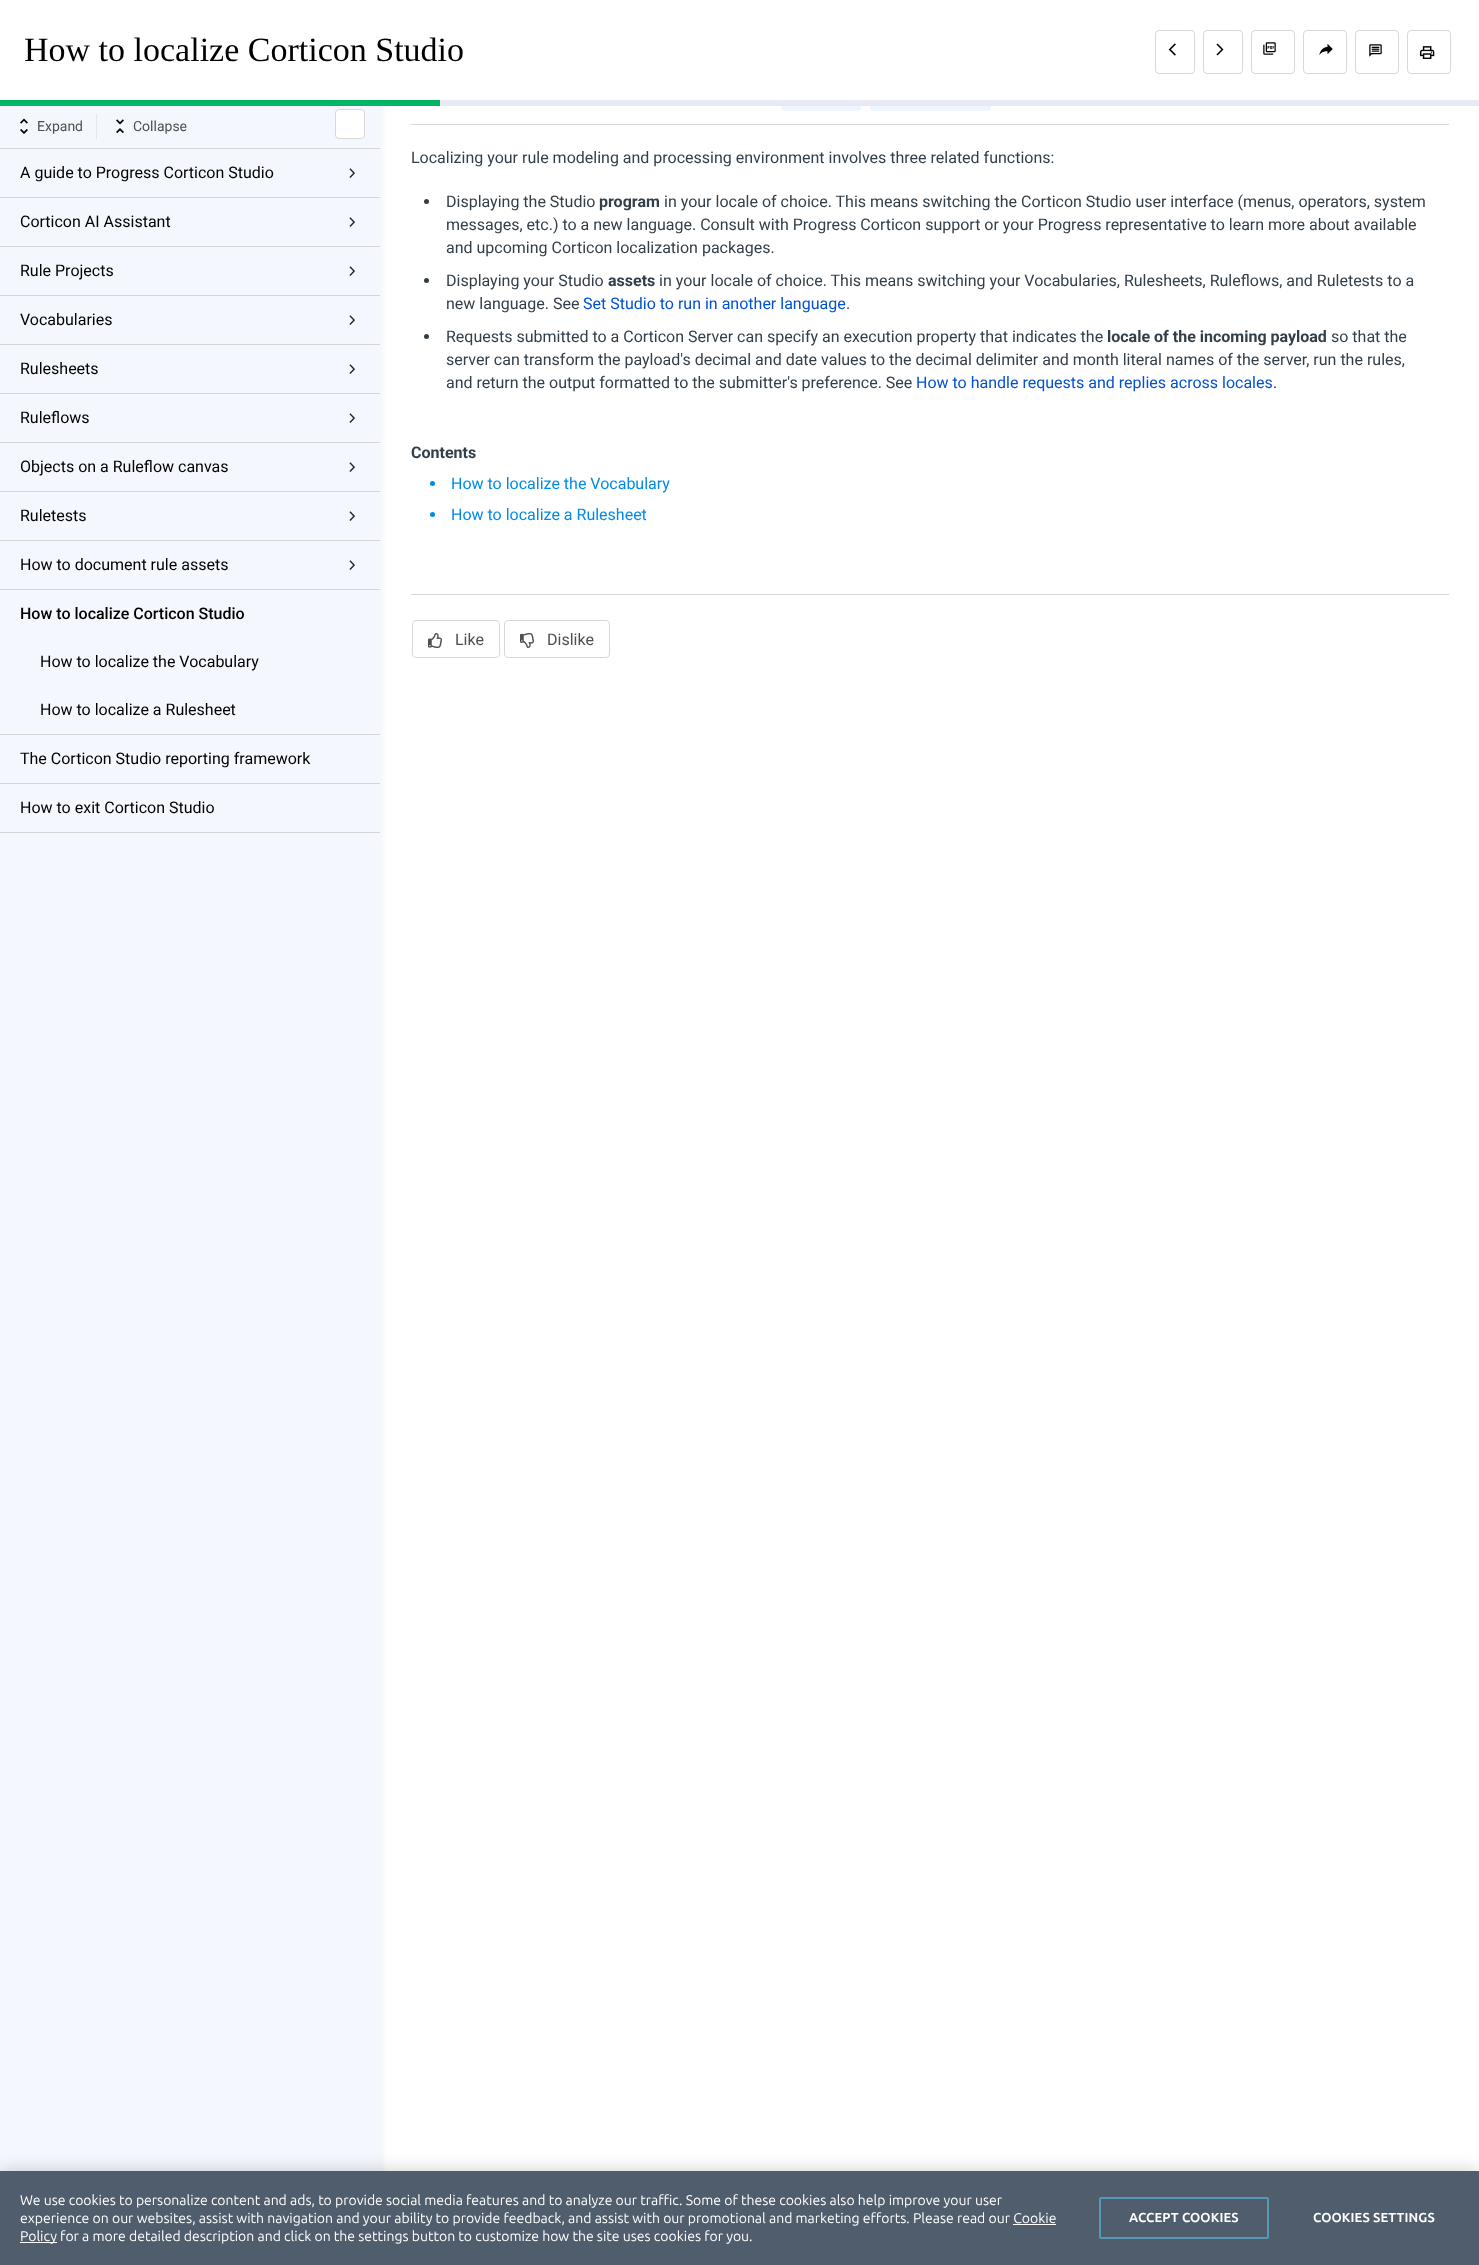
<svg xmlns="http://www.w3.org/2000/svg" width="1479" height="2265">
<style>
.a{font:34px Liberation Serif;fill:#000}
.b{font:14px Roboto;fill:#4f4f4f}
.c{font:16px Roboto;fill:#000}
.d{font:500 16px Roboto;fill:#000}
.e{font:16px Roboto;fill:#323e48}
.f{font:bold 16px Roboto;fill:#323e48}
.g{font:16px Roboto;fill:#0051d3}
.h{font:16px Roboto;fill:#008aea}
.i{font:16px Roboto;fill:#4f4f4f}
.j{font:14px Ubuntu;fill:#fff}
.k{font:bold 13px Ubuntu;letter-spacing:0.1px;fill:#fff}
</style>
<rect width="100%" height="100%" fill="#fff"/>
<path fill="#b5b7b340" filter="blur(4px)" d="M0 -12h381v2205H0z"/>
<rect fill="#eef5ff" x="781" y="77" width="80" height="34" rx="4"/>
<rect fill="#eef5ff" x="870" y="77" width="121" height="34" rx="4"/>
<path fill="#fff" d="M0 0h991v100H0z"/>
<rect fill="none" stroke="#d8d8d8" x="1155.5" y="30.5" width="39" height="43" rx="3.5"/>
<image href="1.png" x="1168" y="43" width="8" height="13"/>
<rect fill="none" stroke="#d8d8d8" x="1203.5" y="30.5" width="39" height="43" rx="3.5"/>
<image href="2.png" x="1216" y="43" width="8" height="13"/>
<rect fill="none" stroke="#d8d8d8" x="1251.5" y="30.5" width="43" height="43" rx="3.5"/>
<image href="3.png" x="1263" y="42" width="13" height="13"/>
<rect fill="none" stroke="#d8d8d8" x="1303.5" y="30.5" width="43" height="43" rx="3.5"/>
<image href="4.png" x="1319" y="43" width="14" height="12"/>
<rect fill="none" stroke="#d8d8d8" x="1355.5" y="30.5" width="43" height="43" rx="3.5"/>
<image href="5.png" x="1369" y="44" width="13" height="13"/>
<rect fill="none" stroke="#d8d8d8" x="1407.5" y="30.5" width="43" height="43" rx="3.5"/>
<image href="6.png" x="1420" y="46" width="15" height="13"/>
<path fill="#00b563" d="M0 100h440v6H0z"/>
<path fill="#e7eaf4" d="M440 100h1039v6H440z"/>
<path fill="#f4f7fd" d="M0 106h381v2065H0z"/>
<path fill="#d6d6d6" d="M0 148h380v1H0z"/>
<image href="7.png" x="20" y="118" width="8" height="16"/>
<path fill="#e5e7ea" d="M96 114h1v25H96z"/>
<image href="8.png" x="116" y="119" width="8" height="15"/>
<rect fill="#fff" stroke="#d8d8d8" x="335.5" y="109.5" width="29" height="29" rx="3.5"/>
<path fill="#d6d6d6" d="M0 197h380v1H0z"/>
<image href="9.png" x="349" y="168" width="6" height="10"/>
<path fill="#d6d6d6" d="M0 246h380v1H0z"/>
<image href="9.png" x="349" y="217" width="6" height="10"/>
<path fill="#d6d6d6" d="M0 295h380v1H0z"/>
<image href="9.png" x="349" y="266" width="6" height="10"/>
<path fill="#d6d6d6" d="M0 344h380v1H0z"/>
<image href="9.png" x="349" y="315" width="6" height="10"/>
<path fill="#d6d6d6" d="M0 393h380v1H0z"/>
<image href="9.png" x="349" y="364" width="6" height="10"/>
<path fill="#d6d6d6" d="M0 442h380v1H0z"/>
<image href="9.png" x="349" y="413" width="6" height="10"/>
<path fill="#d6d6d6" d="M0 491h380v1H0z"/>
<image href="9.png" x="349" y="462" width="6" height="10"/>
<path fill="#d6d6d6" d="M0 540h380v1H0z"/>
<image href="9.png" x="349" y="511" width="6" height="10"/>
<path fill="#d6d6d6" d="M0 589h380v1H0z"/>
<image href="9.png" x="349" y="560" width="6" height="10"/>
<path fill="#d6d6d6" d="M0 734h380v1H0z"/>
<path fill="#d6d6d6" d="M0 783h380v1H0z"/>
<path fill="#d6d6d6" d="M0 832h380v1H0z"/>
<path fill="#d8d8d8" d="M411 124h1038v1H411z"/>
<circle fill="#323e48" cx="426.5" cy="201.5" r="2.5"/>
<circle fill="#323e48" cx="426.5" cy="280.5" r="2.5"/>
<circle fill="#323e48" cx="426.5" cy="336.5" r="2.5"/>
<circle fill="#008aea" cx="432.5" cy="483.5" r="2.5"/>
<circle fill="#008aea" cx="432.5" cy="514.5" r="2.5"/>
<path fill="#d6d6d6" d="M411 594h1038v1H411z"/>
<rect fill="none" stroke="#d8d8d8" x="412.5" y="620.5" width="87" height="37" rx="3.5"/>
<image href="10.png" x="428" y="633" width="14" height="15"/>
<rect fill="none" stroke="#d8d8d8" x="504.5" y="620.5" width="105" height="37" rx="3.5"/>
<image href="11.png" x="520" y="633" width="14" height="15"/>
<path fill="#00000033" filter="blur(9px)" d="M0 2171h1479v94H0z"/>
<path fill="#4f5d6c" d="M0 2171h1479v94H0z"/>
<path fill="#fff" d="M1013 2224h43v1H1013z"/>
<path fill="#fff" d="M20 2242h37v1H20z"/>
<rect fill="none" stroke="#5699b6" stroke-width="2" x="1100" y="2198" width="168" height="40" rx="1"/>
<text class="a" x="24" y="61">How to localize Corticon Studio</text>
<text class="b" x="37" y="131">Expand</text>
<text class="b" x="133" y="131">Collapse</text>
<text class="c" x="20" y="178">A guide to Progress Corticon Studio</text>
<text class="c" x="20" y="227">Corticon AI Assistant</text>
<text class="c" x="20" y="276">Rule Projects</text>
<text class="c" x="20" y="325">Vocabularies</text>
<text class="c" x="20" y="374">Rulesheets</text>
<text class="c" x="20" y="423">Ruleflows</text>
<text class="c" x="20" y="472">Objects on a Ruleflow canvas</text>
<text class="c" x="20" y="521">Ruletests</text>
<text class="c" x="20" y="570">How to document rule assets</text>
<text class="d" x="20" y="619">How to localize Corticon Studio</text>
<text class="c" x="40" y="667">How to localize the Vocabulary</text>
<text class="c" x="40" y="715">How to localize a Rulesheet</text>
<text class="c" x="20" y="764">The Corticon Studio reporting framework</text>
<text class="c" x="20" y="813">How to exit Corticon Studio</text>
<text class="e" x="411" y="163">Localizing your rule modeling and processing environment involves three related functions:</text>
<text class="e" x="446" y="207">Displaying the Studio</text>
<text class="f" x="599" y="207">program</text>
<text class="e" x="664" y="207">in your locale of choice. This means switching the Corticon Studio user interface (menus, operators, system</text>
<text class="e" x="446" y="230">messages, etc.) to a new language. Consult with Progress Corticon support or your Progress representative to learn more about available</text>
<text class="e" x="446" y="253">and upcoming Corticon localization packages.</text>
<text class="e" x="446" y="286">Displaying your Studio</text>
<text class="f" x="608" y="286">assets</text>
<text class="e" x="659" y="286">in your locale of choice. This means switching your Vocabularies, Rulesheets, Ruleflows, and Ruletests to a</text>
<text class="e" x="446" y="309">new language. See</text>
<text class="g" x="583" y="309">Set Studio to run in another language</text>
<text class="e" x="846" y="309">.</text>
<text class="e" x="446" y="342">Requests submitted to a Corticon Server can specify an execution property that indicates the</text>
<text class="f" x="1107" y="342">locale of the incoming payload</text>
<text class="e" x="1331" y="342">so that the</text>
<text class="e" x="446" y="365">server can transform the payload's decimal and date values to the decimal delimiter and month literal names of the server, run the rules,</text>
<text class="e" x="446" y="388">and return the output formatted to the submitter's preference. See</text>
<text class="g" x="916" y="388">How to handle requests and replies across locales</text>
<text class="e" x="1273" y="388">.</text>
<text class="f" x="411" y="458">Contents</text>
<text class="h" x="451" y="489">How to localize the Vocabulary</text>
<text class="h" x="451" y="520">How to localize a Rulesheet</text>
<text class="i" x="455" y="645">Like</text>
<text class="i" x="547" y="645">Dislike</text>
<text class="j" x="20" y="2205">We use cookies to personalize content and ads, to provide social media features and to analyze our traffic. Some of these cookies also help improve your user</text>
<text class="j" x="20" y="2223">experience on our websites, assist with navigation and your ability to provide feedback, and assist with our promotional and marketing efforts. Please read our Cookie</text>
<text class="j" x="20" y="2241">Policy for a more detailed description and click on the settings button to customize how the site uses cookies for you.</text>
<text class="k" x="1129" y="2222">ACCEPT COOKIES</text>
<text class="k" x="1313" y="2222">COOKIES SETTINGS</text>
</svg>
